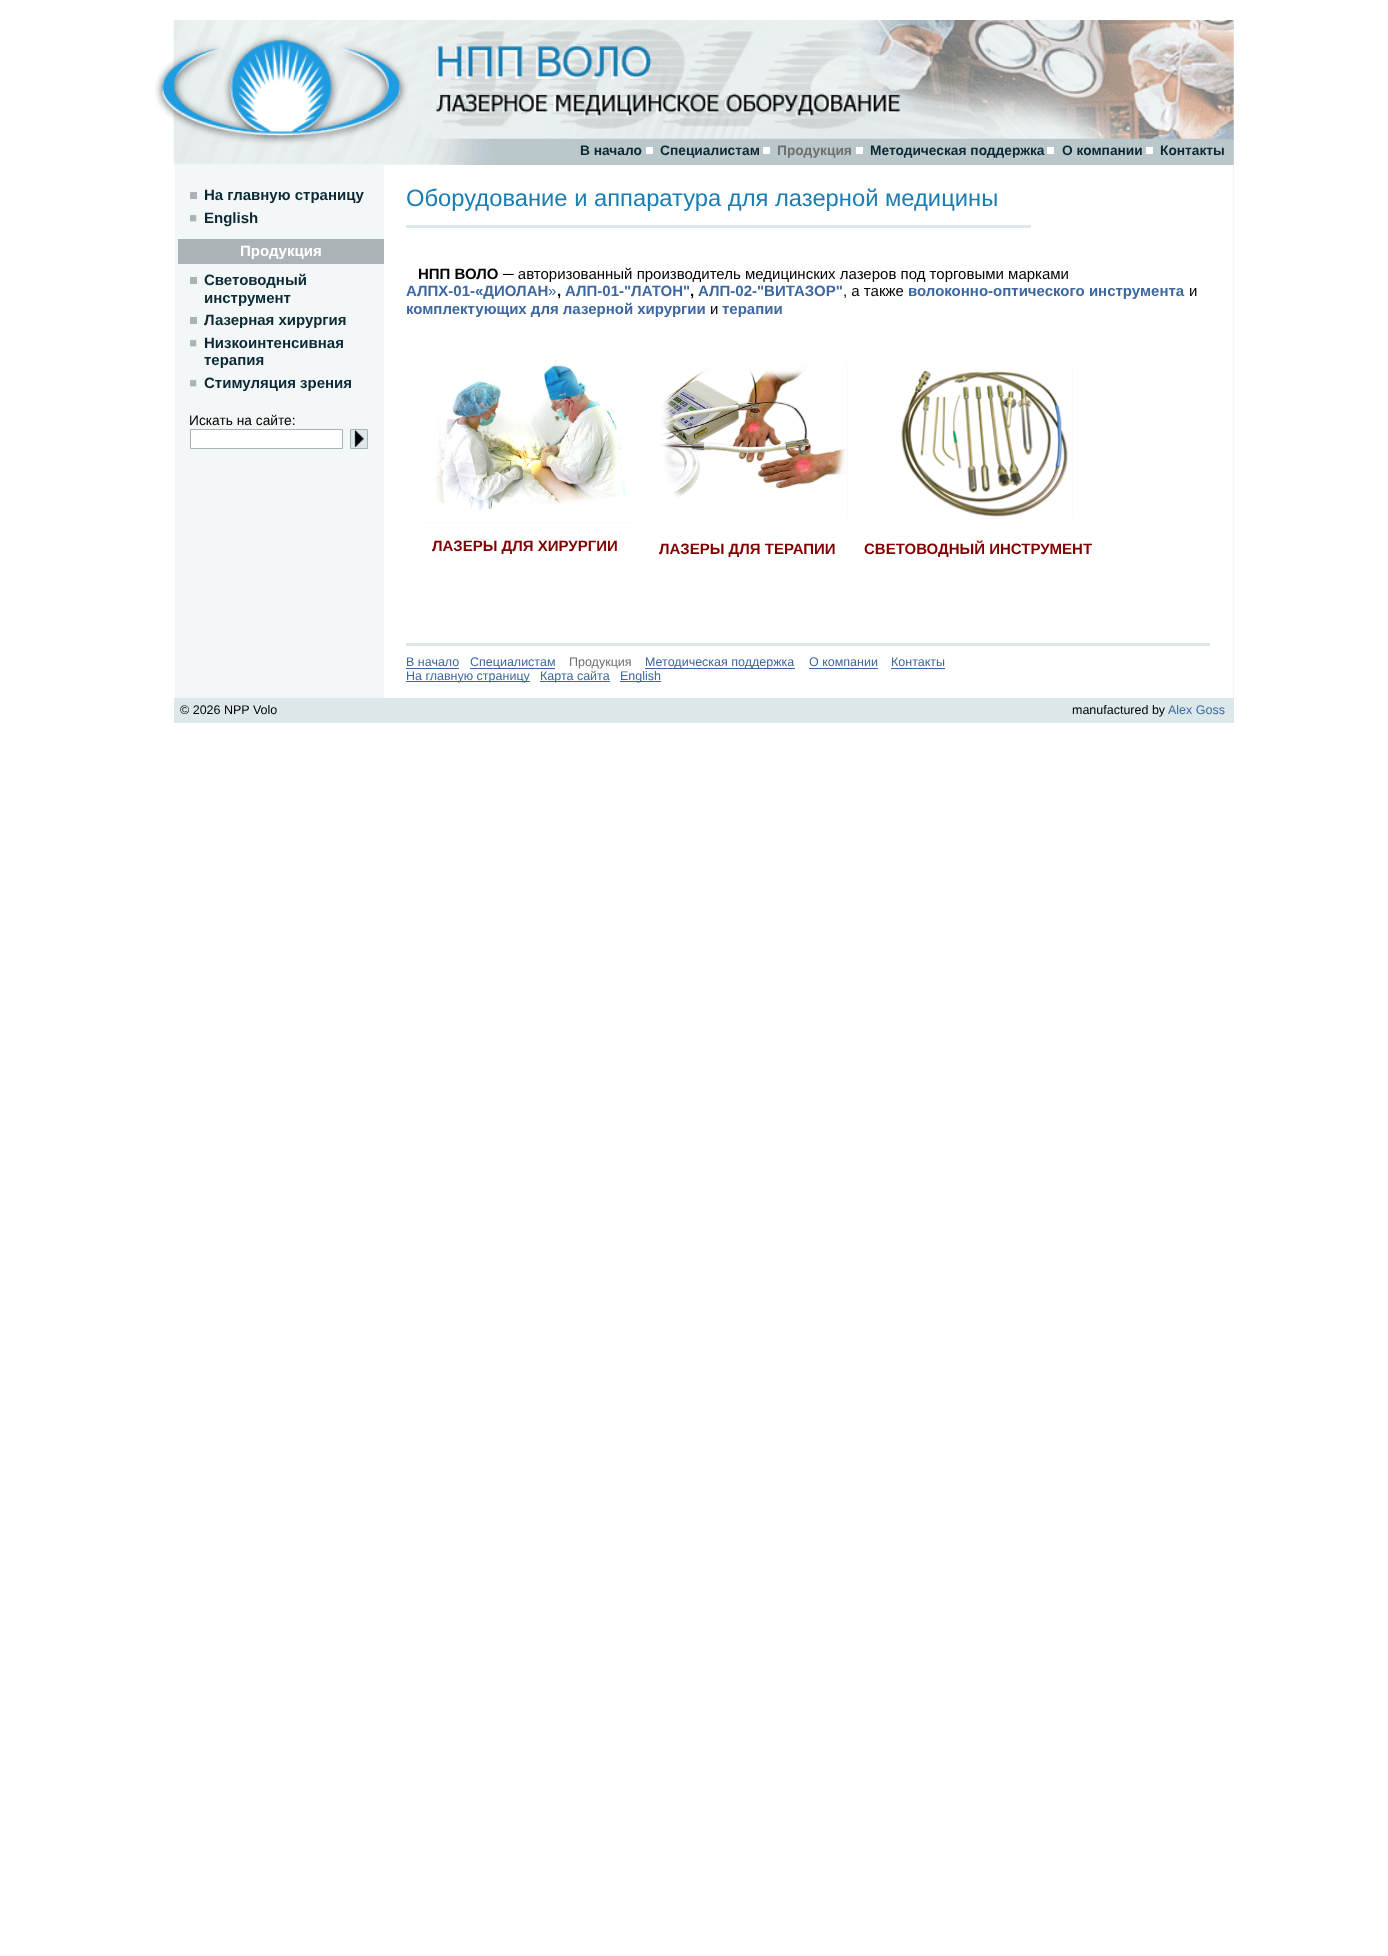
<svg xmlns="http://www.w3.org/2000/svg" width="1388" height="1956">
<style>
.a{font:bold 13.75px Liberation Sans;fill:#0b2934}
.b{font:bold 13.75px Liberation Sans;fill:#6f6f6f}
.c{font:bold 15px Liberation Sans;fill:#0b2934}
.d{font:bold 15px Liberation Sans;fill:#fff}
.e{font:13.75px Liberation Sans;fill:#000}
.f{font:23.75px Liberation Sans;fill:#1a7eb3}
.g{font:bold 15px Liberation Sans;fill:#000}
.h{font:15px Liberation Sans;fill:#000}
.i{font:bold 15px Liberation Sans;fill:#3d67a1}
.j{font:15px Liberation Sans;fill:#3d67a1}
.k{font:bold 15px Liberation Sans;fill:#800000}
.l{font:12.5px Liberation Sans;fill:#3d67a1}
.m{font:12.5px Liberation Sans;fill:#6f6f6f}
.n{font:12.5px Liberation Sans;fill:#000}
</style>
<rect width="100%" height="100%" fill="#fff"/>
<path fill="#f3f7f8" d="M175 20h1059v678H175z"/>
<image href="1.png" x="155" y="20" width="1079" height="145"/>
<image href="2.png" x="155" y="33" width="253" height="112"/>
<image href="3.png" x="435" y="46" width="217" height="34"/>
<image href="4.png" x="433" y="93" width="468" height="24"/>
<path fill="#fff" d="M646 147h7v7H646z"/>
<path fill="#fff" d="M763 147h7v7H763z"/>
<path fill="#fff" d="M856 147h7v7H856z"/>
<path fill="#fff" d="M1047 147h7v7H1047z"/>
<path fill="#fff" d="M1146 147h7v7H1146z"/>
<path fill="#fff" d="M384 165h849v533H384z"/>
<path fill="#abb3b6" d="M190 192h7v7H190z"/>
<image href="5.png" x="190" y="214" width="7" height="8"/>
<path fill="#abb3b6" d="M178 239h206v25H178z"/>
<path fill="#abb3b6" d="M190 277h7v7H190z"/>
<path fill="#abb3b6" d="M190 317h7v7H190z"/>
<image href="5.png" x="190" y="339" width="7" height="8"/>
<image href="5.png" x="190" y="379" width="7" height="8"/>
<path fill="#fff" stroke="#abb3b6" d="M190.5 429.5h152v19H190.5z"/>
<path fill="#dde8eb" d="M351 430h16v18H351z"/>
<image href="6.png" x="354" y="428" width="10" height="19"/>
<path fill="none" stroke="#abb3b6" d="M350.5 429.5h17v19H350.5z"/>
<path fill="#dde8eb" d="M406 225h625v3H406z"/>
<path fill="#f3f7f8" d="M419 522h212v1H419z"/>
<image href="7.png" x="419" y="360" width="212" height="163"/>
<path fill="#f3f7f8" d="M660 364h188v155H660z"/>
<image href="8.png" x="660" y="364" width="188" height="155"/>
<path fill="#f3f7f8" d="M898 365h175v154H898z"/>
<image href="9.png" x="898" y="365" width="175" height="154"/>
<path fill="#dde8eb" d="M406 643h804v3H406z"/>
<path fill="#3d67a1" d="M406 668h53v1H406z"/>
<path fill="#3d67a1" d="M470 668h85v1H470z"/>
<path fill="#3d67a1" d="M645 668h150v1H645z"/>
<path fill="#3d67a1" d="M809 668h69v1H809z"/>
<path fill="#3d67a1" d="M891 668h54v1H891z"/>
<path fill="#3d67a1" d="M406 681h124v1H406z"/>
<path fill="#3d67a1" d="M540 681h70v1H540z"/>
<path fill="#3d67a1" d="M620 681h41v1H620z"/>
<path fill="#dde8eb" d="M174 698h1060v25H174z"/>
<text class="a" x="580" y="155">В начало</text>
<text class="a" x="660" y="155">Специалистам</text>
<text class="b" x="777" y="155">Продукция</text>
<text class="a" x="870" y="155">Методическая поддержка</text>
<text class="a" x="1062" y="155">О компании</text>
<text class="a" x="1160" y="155">Контакты</text>
<text class="c" x="204" y="200">На главную страницу</text>
<text class="c" x="204" y="223">English</text>
<text class="d" x="240" y="256">Продукция</text>
<text class="c" x="204" y="285">Световодный</text>
<text class="c" x="204" y="303">инструмент</text>
<text class="c" x="204" y="325">Лазерная хирургия</text>
<text class="c" x="204" y="348">Низкоинтенсивная</text>
<text class="c" x="204" y="365">терапия</text>
<text class="c" x="204" y="388">Стимуляция зрения</text>
<text class="e" x="189" y="425">Искать на сайте:</text>
<text class="f" x="406" y="206">Оборудование и аппаратура для лазерной медицины</text>
<text class="g" x="418" y="279">НПП ВОЛО</text>
<text class="h" x="503" y="279">─ авторизованный производитель медицинских лазеров под торговыми марками</text>
<text class="i" x="406" y="296">АЛПХ-01-«ДИОЛАН</text>
<text class="j" x="548" y="296">»</text>
<text class="i" x="565" y="296">АЛП-01-"ЛАТОН"</text>
<text class="i" x="698" y="296">АЛП-02-"ВИТАЗОР"</text>
<text class="h" x="843" y="296">, а также</text>
<text class="i" x="908" y="296">волоконно-оптического инструмента</text>
<text class="h" x="1189" y="296">и</text>
<text class="g" x="557" y="296">,</text>
<text class="g" x="690" y="296">,</text>
<text class="i" x="406" y="314">комплектующих для лазерной хирургии</text>
<text class="h" x="710" y="314">и</text>
<text class="i" x="722" y="314">терапии</text>
<text class="k" x="432" y="551">ЛАЗЕРЫ ДЛЯ ХИРУРГИИ</text>
<text class="k" x="659" y="554">ЛАЗЕРЫ ДЛЯ ТЕРАПИИ</text>
<text class="k" x="864" y="554">СВЕТОВОДНЫЙ ИНСТРУМЕНТ</text>
<text class="l" x="406" y="666">В начало</text>
<text class="l" x="470" y="666">Специалистам</text>
<text class="m" x="569" y="666">Продукция</text>
<text class="l" x="645" y="666">Методическая поддержка</text>
<text class="l" x="809" y="666">О компании</text>
<text class="l" x="891" y="666">Контакты</text>
<text class="l" x="406" y="680">На главную страницу</text>
<text class="l" x="540" y="680">Карта сайта</text>
<text class="l" x="620" y="680">English</text>
<text class="n" x="180" y="714">© 2026 NPP Volo</text>
<text class="n" x="1072" y="714">manufactured by</text>
<text class="l" x="1168" y="714">Alex Goss</text>
</svg>
